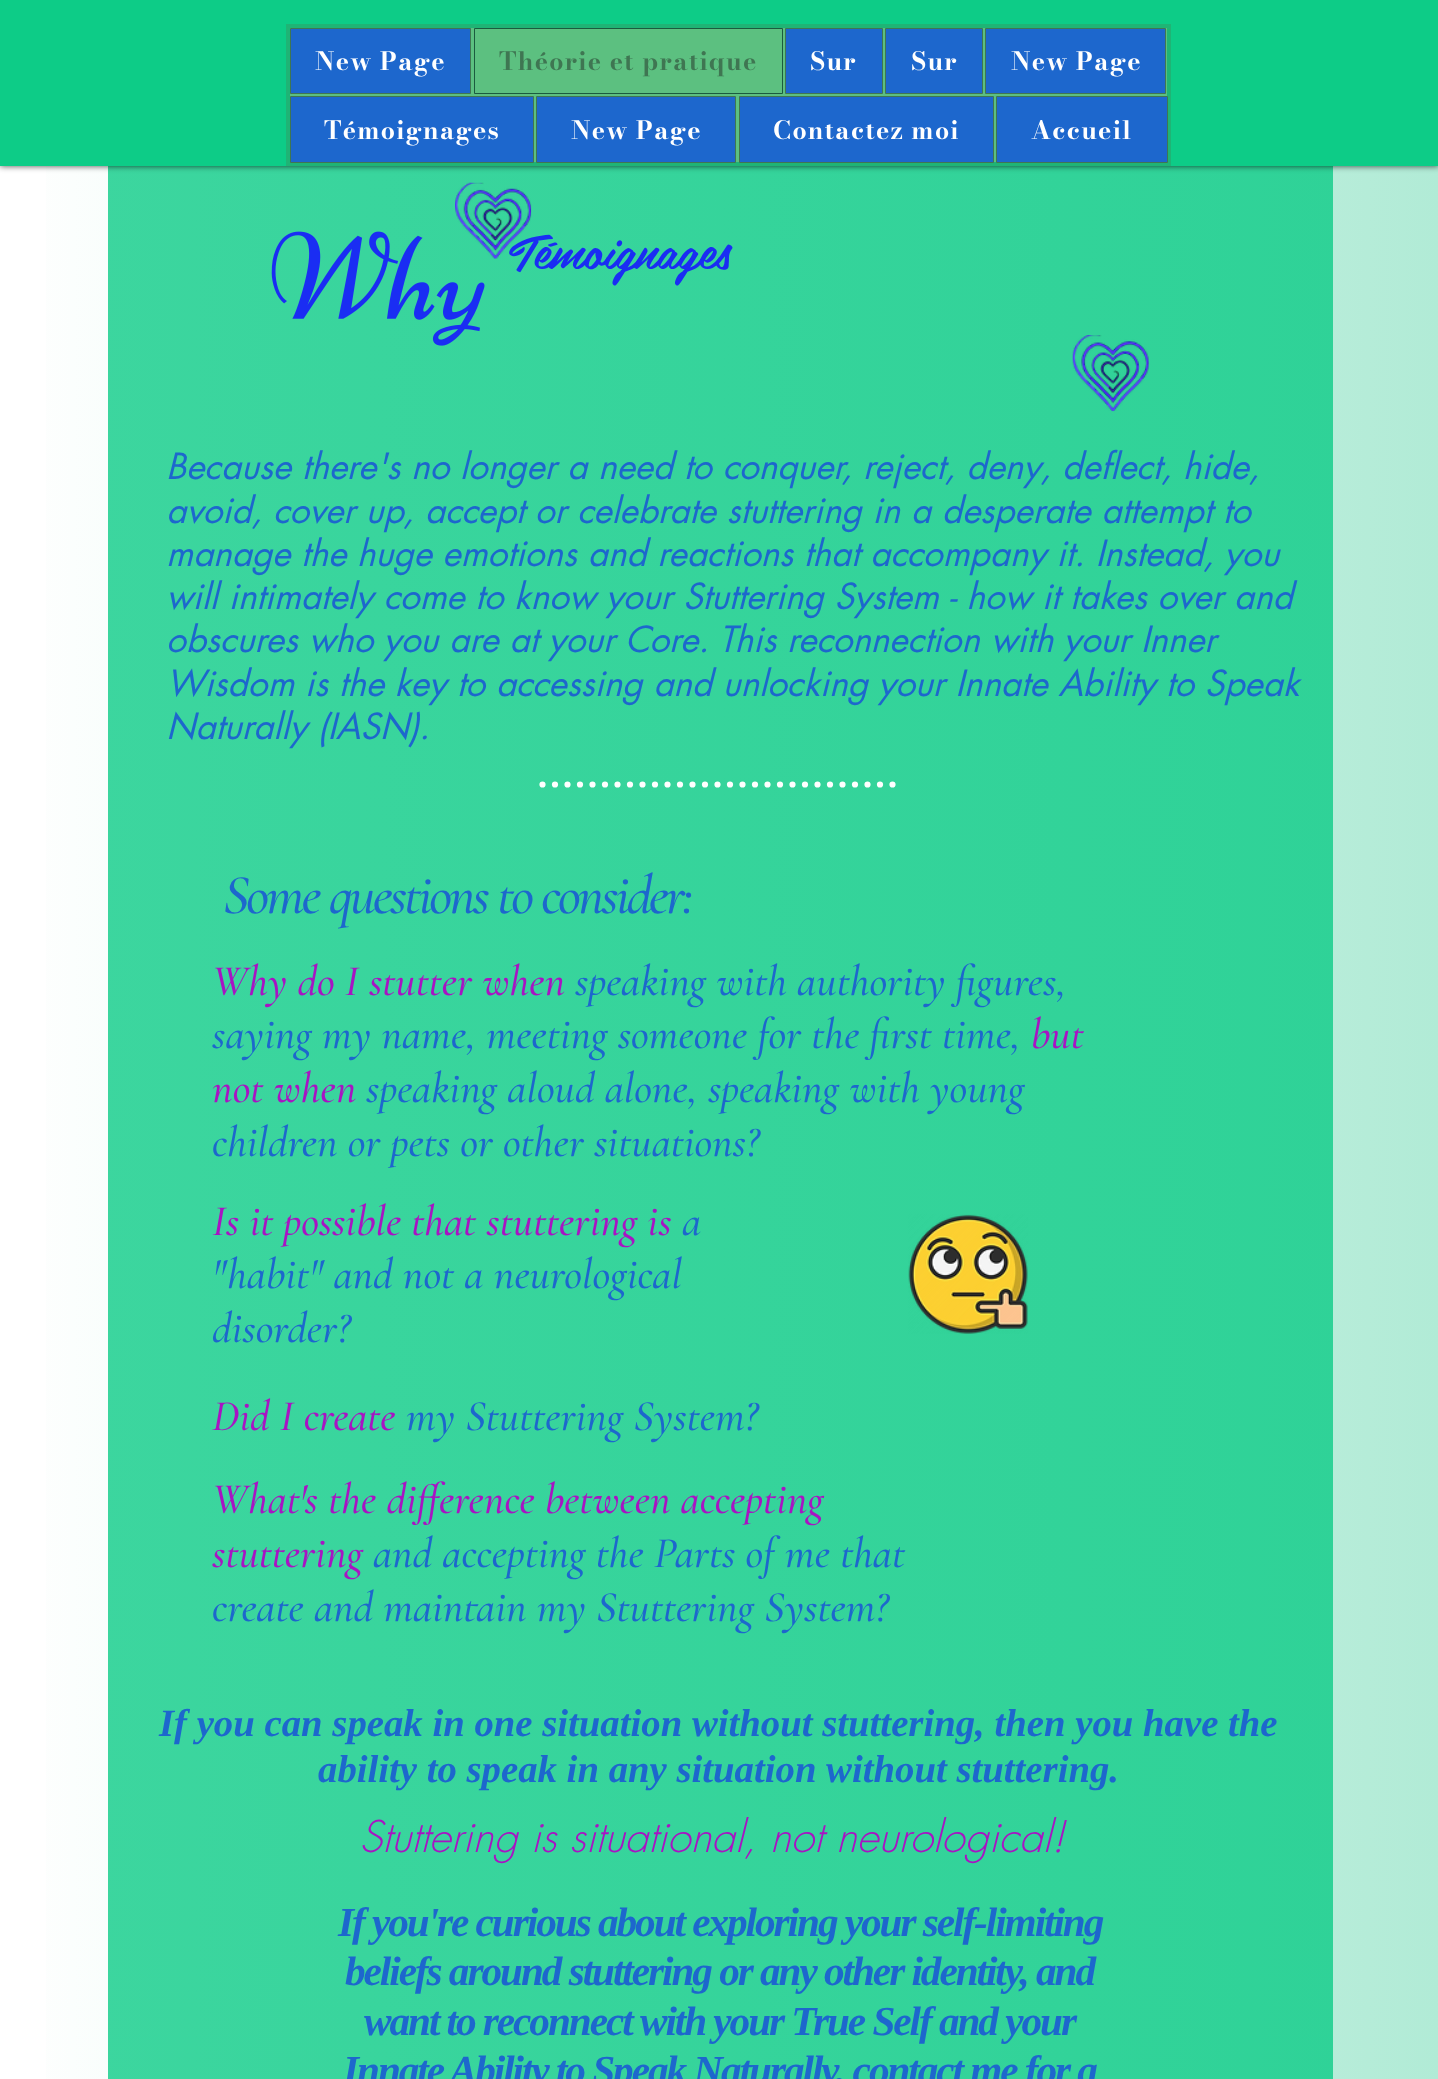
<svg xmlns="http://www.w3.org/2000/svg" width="1438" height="2079">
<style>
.a{font:bold 25px Bodoni Moda;letter-spacing:1.25px;fill:#fff}
.b{font:bold 25px Bodoni Moda;letter-spacing:1.25px;fill:#3f7652}
.c{font:48.75px 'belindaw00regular';fill:#1a2df3}
.d{font:italic 35px futura;fill:#1d67cd}
.e{font:italic 500 56.25px Cormorant Garamond;letter-spacing:-2.8px;fill:#1d67cd}
.f{font:italic 500 43.75px Cormorant Garamond;fill:#a814c3}
.g{font:italic 500 43.75px Cormorant Garamond;fill:#1d67cd}
.h{font:italic bold 38.75px Liberation Serif;fill:#1d67cd}
.i{font:italic 300 42.5px futura;fill:#a814c3}
.j{font:italic bold 41.25px Liberation Serif;letter-spacing:-2.05px;fill:#1d67cd}
</style>
<defs>
<linearGradient id="g1" gradientUnits="userSpaceOnUse" x1="0" y1="1212" x2="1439" y2="1212"><stop offset="0" stop-color="#fff"/><stop offset="1" stop-color="#b1ebd6"/></linearGradient>
<linearGradient id="g2" gradientUnits="userSpaceOnUse" x1="0" y1="1212" x2="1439" y2="1212"><stop offset="0" stop-color="#3dd69f"/><stop offset="1" stop-color="#2ed297"/></linearGradient>
</defs>
<rect width="100%" height="100%" fill="#fff"/>
<path fill="url(#g1)" d="M46 166h1392v1913H46z"/>
<path fill="url(#g2)" d="M108 166h1225v1913H108z"/>
<path fill="#000000b3" filter="blur(3px)" d="M0 0h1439v166H0z"/>
<path fill="#0dcc87" d="M0 0h1438v166H0z"/>
<path fill="#5cc080" stroke="#1fb475" stroke-width="4" d="M288 26h881v138H288z"/>
<path fill="#1d67cd" stroke="#3f7652" d="M290.5 28.5h180v65H290.5z"/>
<path fill="none" stroke="#1b5b3f" d="M474.5 28.5h308v65H474.5z"/>
<path fill="#1d67cd" stroke="#3f7652" d="M785.5 28.5h97v65H785.5z"/>
<path fill="#1d67cd" stroke="#3f7652" d="M885.5 28.5h97v65H885.5z"/>
<path fill="#1d67cd" stroke="#3f7652" d="M985.5 28.5h180v65H985.5z"/>
<path fill="#1d67cd" stroke="#3f7652" d="M290.5 96.5h243v66H290.5z"/>
<path fill="#1d67cd" stroke="#3f7652" d="M536.5 96.5h199v66H536.5z"/>
<path fill="#1d67cd" stroke="#3f7652" d="M739.5 96.5h254v66H739.5z"/>
<path fill="#1d67cd" stroke="#3f7652" d="M996.5 96.5h171v66H996.5z"/>
<image href="2.png" x="271" y="231" width="214" height="115"/>
<image href="3.png" x="1072" y="335" width="77" height="77"/>
<path fill="none" stroke="#fff" stroke-width="6.2" stroke-linecap="round" stroke-dasharray="0 12.5" d="M542.5 784.5h355"/>
<image href="4.png" x="908" y="1214" width="120" height="120"/>
<text class="a" x="315" y="70">New Page</text>
<text class="b" x="499" y="70">Théorie et pratique</text>
<text class="a" x="810" y="70">Sur</text>
<text class="a" x="911" y="70">Sur</text>
<text class="a" x="1011" y="70">New Page</text>
<text class="a" x="324" y="139">Témoignages</text>
<text class="a" x="571" y="139">New Page</text>
<text class="a" x="773" y="139">Contactez moi</text>
<text class="a" x="1031" y="139">Accueil</text>
<text class="c" x="509" y="269">Témoignages</text>
<image href="1.png" x="455" y="182" width="77" height="77"/>
<text class="d" x="166" y="479">Because there's no longer a need to conquer, reject, deny, deflect, hide,</text>
<text class="d" x="166" y="523">avoid, cover up, accept or celebrate stuttering in a desperate attempt to</text>
<text class="d" x="166" y="566">manage the huge emotions and reactions that accompany it. Instead, you</text>
<text class="d" x="166" y="609">will intimately come to know your Stuttering System - how it takes over and</text>
<text class="d" x="166" y="652">obscures who you are at your Core. This reconnection with your Inner</text>
<text class="d" x="166" y="696">Wisdom is the key to accessing and unlocking your Innate Ability to Speak</text>
<text class="d" x="166" y="739">Naturally (IASN).</text>
<text class="e" x="223" y="913">Some questions to consider:</text>
<text class="f" x="212" y="995">Why do I stutter when</text>
<text class="g" x="575" y="995">speaking with authority figures,</text>
<text class="g" x="212" y="1048">saying my name, meeting someone for the first time,</text>
<text class="f" x="1031" y="1048">but</text>
<text class="f" x="212" y="1102">not when</text>
<text class="g" x="366" y="1102">speaking aloud alone, speaking with young</text>
<text class="g" x="212" y="1156">children or pets or other situations?</text>
<text class="f" x="212" y="1235">Is it possible that stuttering is</text>
<text class="g" x="682" y="1235">a</text>
<text class="g" x="212" y="1288">"habit" and not a neurological</text>
<text class="g" x="212" y="1342">disorder?</text>
<text class="f" x="212" y="1430">Did I create</text>
<text class="g" x="406" y="1430">my Stuttering System?</text>
<text class="f" x="212" y="1513">What's the difference between accepting</text>
<text class="f" x="212" y="1567">stuttering</text>
<text class="g" x="373" y="1567">and accepting the Parts of me that</text>
<text class="g" x="212" y="1621">create and maintain my Stuttering System?</text>
<text class="h" x="159" y="1736">If you can speak in one situation without stuttering, then you have the</text>
<text class="h" x="318" y="1782">ability to speak in any situation without stuttering.</text>
<text class="i" x="359" y="1852">Stuttering is situational, not neurological!</text>
<text class="j" x="338" y="1936">If you're curious about exploring your self-limiting</text>
<text class="j" x="345" y="1985">beliefs around stuttering or any other identity, and</text>
<text class="j" x="364" y="2035">want to reconnect with your True Self and your</text>
<text class="j" x="343" y="2084">Innate Ability to Speak Naturally, contact me for a</text>
</svg>
